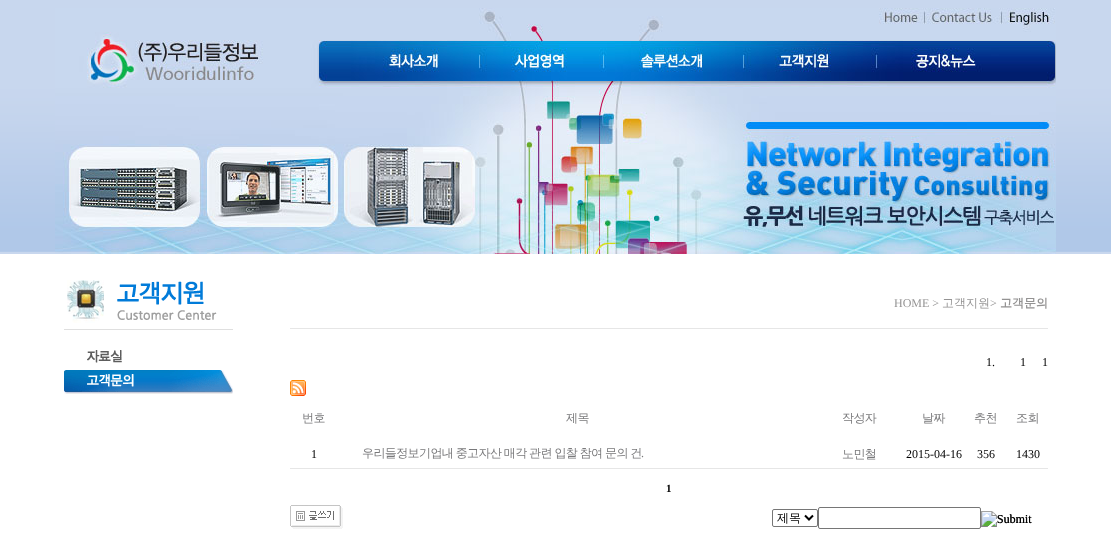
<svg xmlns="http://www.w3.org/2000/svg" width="1111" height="558">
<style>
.a{font:12px Liberation Serif;fill:#949393}
.b{font:500 12px WenQuanYi Zen Hei;fill:#949393}
.c{font:bold 12px WenQuanYi Zen Hei;fill:#949393}
.d{font:12px Liberation Serif;fill:#000}
.e{font:500 12px WenQuanYi Zen Hei;letter-spacing:-0.6px;fill:#79797b}
.f{font:12px Liberation Serif;letter-spacing:-0.6px;fill:#79797b}
.g{font:bold 11px Liberation Serif;fill:#000}
.h{font:500 12px WenQuanYi Zen Hei;fill:#000}
</style>
<rect width="100%" height="100%" fill="#fff"/>
<image href="1.png" x="0" y="0" width="1111" height="254"/>
<image href="2.png" x="55" y="8" width="1001" height="246"/>
<image href="3.png" x="64" y="280" width="169" height="50"/>
<image href="4.png" x="87" y="350" width="35" height="13"/>
<image href="5.png" x="64" y="370" width="169" height="24"/>
<path fill="#e6e6e6" d="M290 328h758v1H290z"/>
<image href="6.png" x="290" y="380" width="16" height="16"/>
<path fill="#e6e6e6" d="M290 468h758v1H290z"/>
<image href="7.png" x="290" y="505" width="53" height="24"/>
<rect fill="none" stroke="#767676" x="772.5" y="509.5" width="45" height="17" rx="1.5"/>
<path fill="none" stroke="#000" stroke-width="2" d="M805 515.5l4 4l4-4"/>
<rect fill="none" stroke="#767676" x="818.5" y="507.5" width="162" height="21" rx="1.5"/>
<image href="8.png" x="981" y="511" width="51" height="16"/>
<text class="a" x="894" y="307">HOME &gt;</text>
<text class="b" x="942" y="307">고객지원</text>
<text class="a" x="990" y="307">&gt;</text>
<text class="c" x="1000" y="307">고객문의</text>
<text class="d" x="986" y="366">1.</text>
<text class="d" x="1020" y="366">1</text>
<text class="d" x="1042" y="366">1</text>
<text class="e" x="302" y="422">번호</text>
<text class="e" x="566" y="422">제목</text>
<text class="e" x="842" y="422">작성자</text>
<text class="e" x="922" y="422">날짜</text>
<text class="e" x="974" y="422">추천</text>
<text class="e" x="1016" y="422">조회</text>
<text class="d" x="311" y="458">1</text>
<text class="e" x="362" y="457" word-spacing="-0.5">우리들정보기업내 중고자산 매각 관련 입찰 참여 문의 건</text>
<text class="f" x="641" y="457">.</text>
<text class="e" x="842" y="458">노민철</text>
<text class="d" x="906" y="458">2015-04-16</text>
<text class="d" x="977" y="458">356</text>
<text class="d" x="1016" y="458">1430</text>
<text class="g" x="666" y="492">1</text>
<text class="h" x="777" y="522">제목</text>
<text class="d" x="997" y="523">Submit</text>
</svg>
